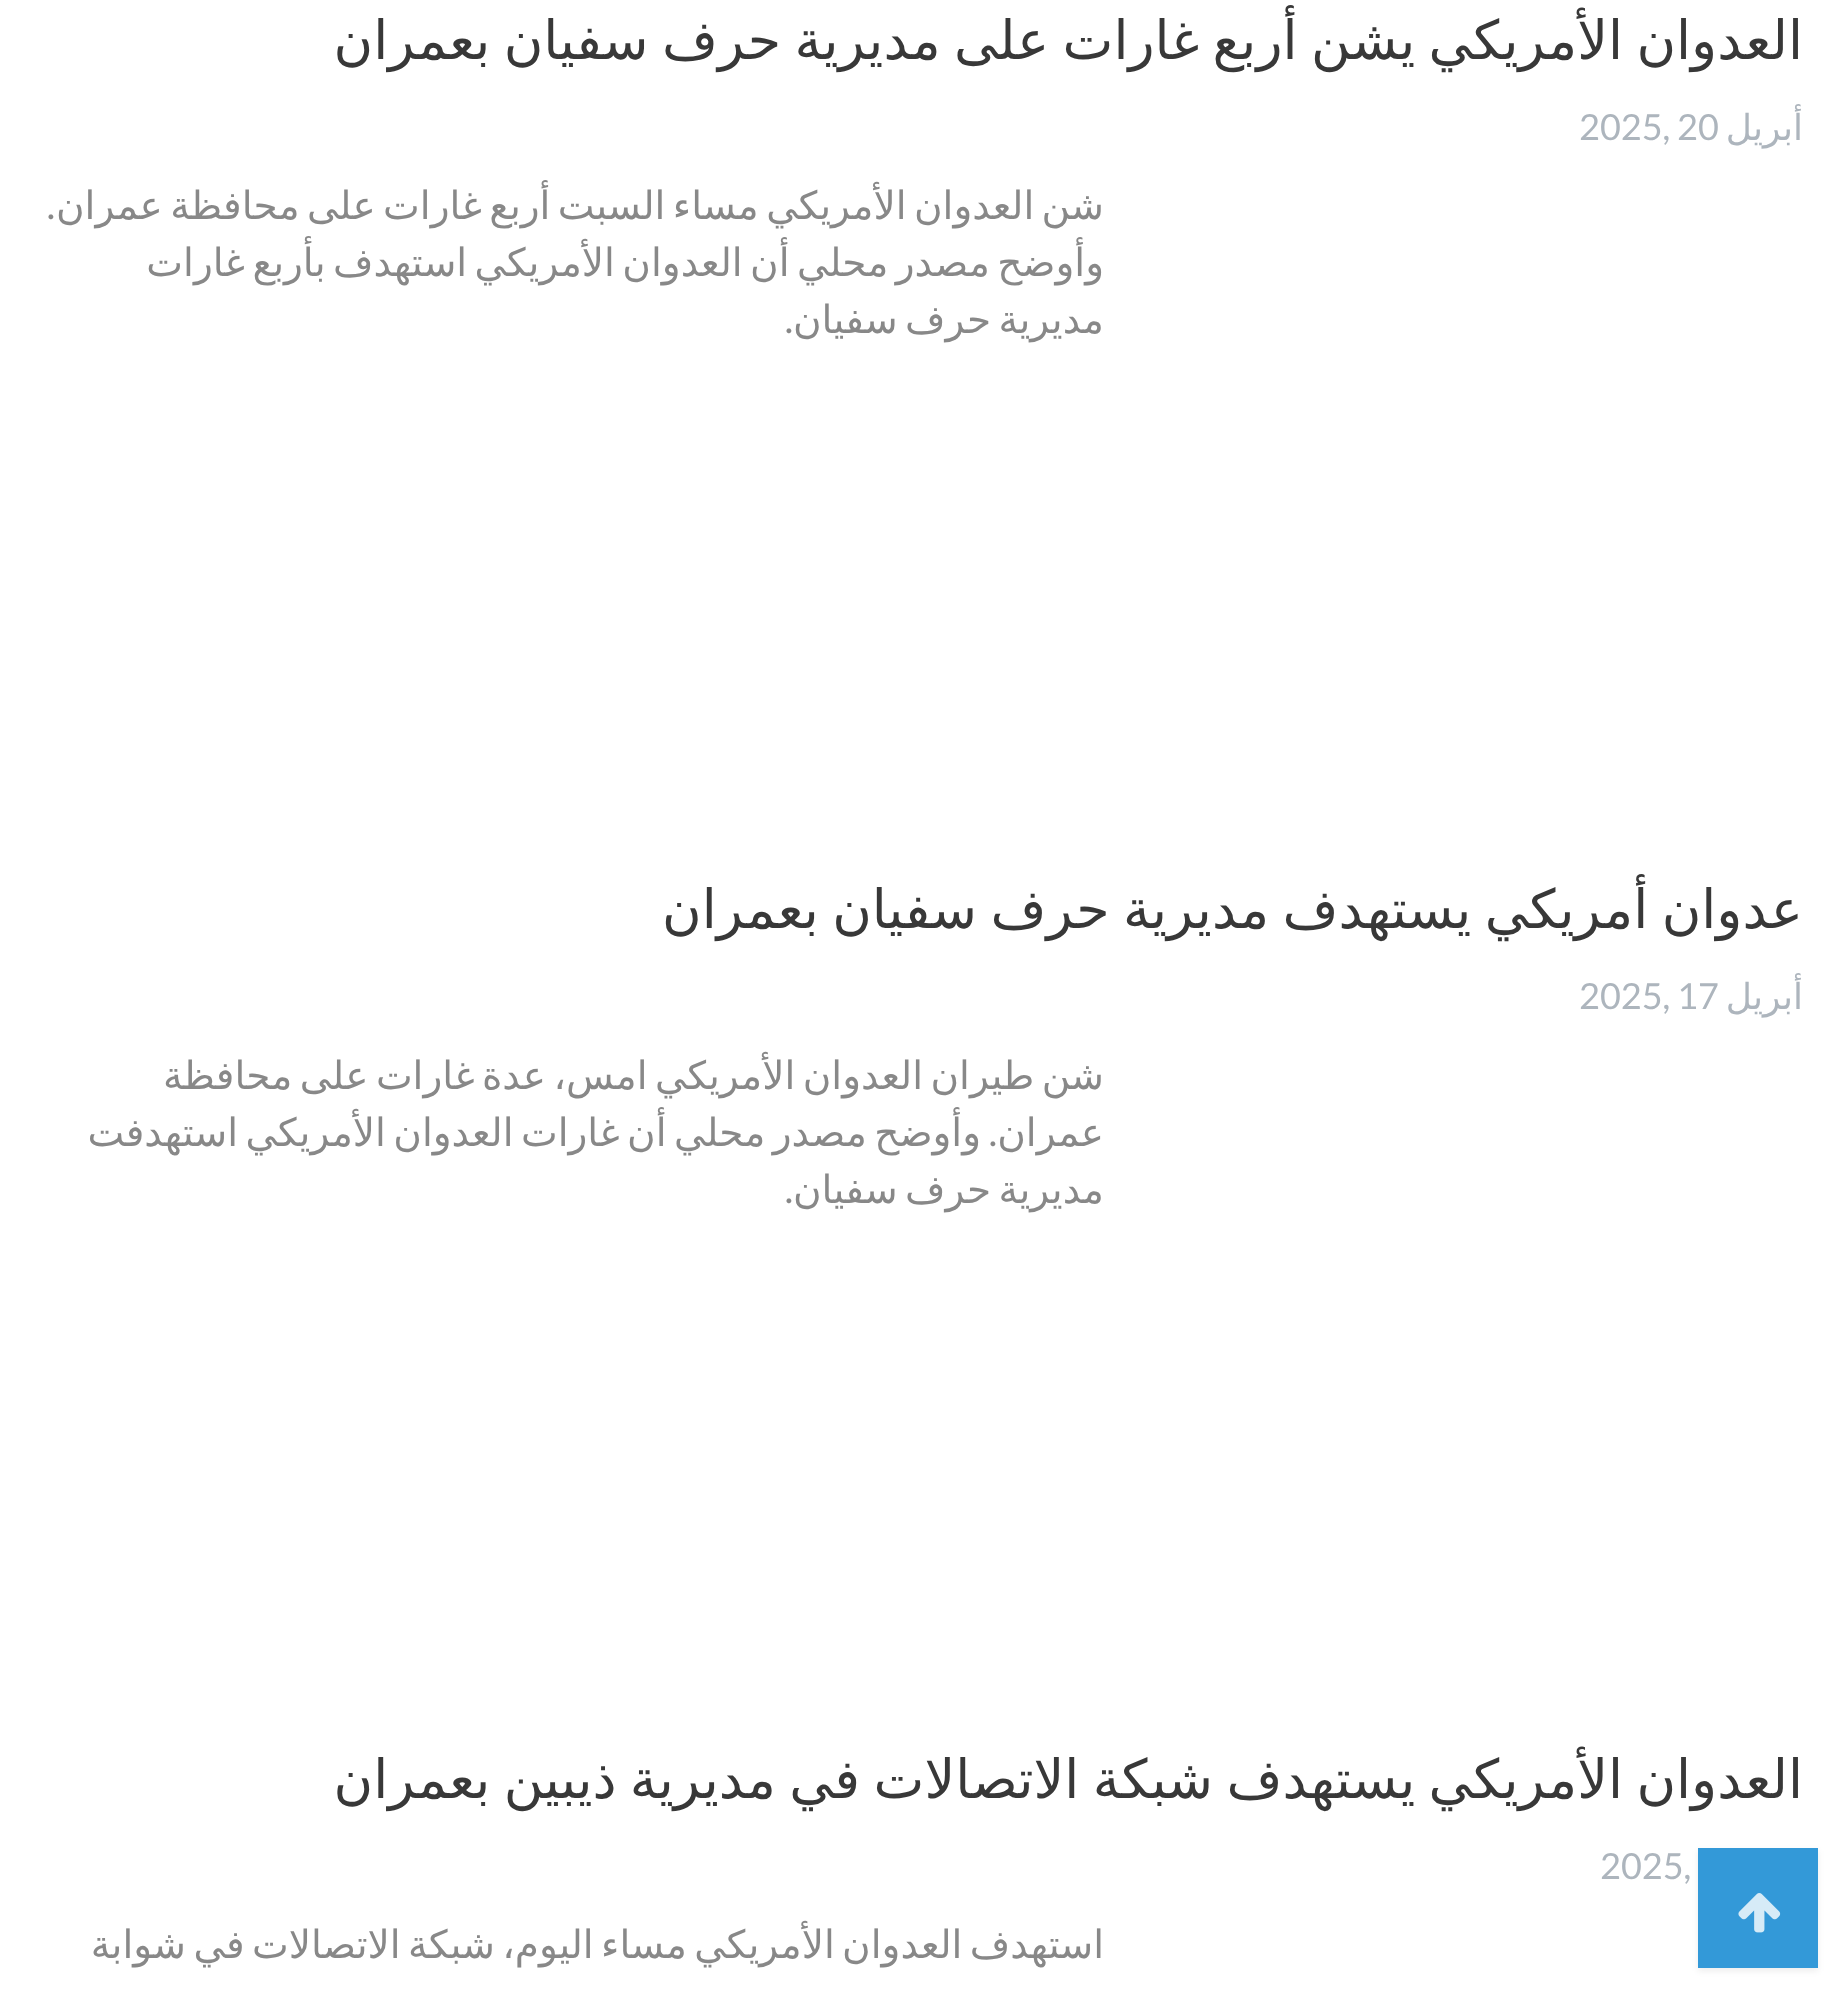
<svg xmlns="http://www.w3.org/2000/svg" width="1848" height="1990">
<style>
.a{font:54px DejaVu Sans;direction:rtl;fill:#383838}
.b{font:36px DejaVu Sans;direction:rtl;fill:#adb5bd}
.c{font:36px Lato;fill:#adb5bd}
.d{font:39px DejaVu Sans;direction:rtl;fill:#888}
.e{font:39px Lato;direction:rtl;fill:#888}
</style>
<defs>
<clipPath id="clip1"><path d="M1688 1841h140v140h-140zm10 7h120v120h-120z" clip-rule="evenodd"/></clipPath>
</defs>
<rect width="100%" height="100%" fill="#fff"/>
<g clip-path="url(#clip1)">
<path fill="#00000012" filter="blur(3px)" d="M1698 1851h120v120H1698z"/>
</g>
<path fill="#0080cecc" d="M1698 1848h120v120H1698z"/>
<image href="1.png" x="1738" y="1893" width="43" height="40"/>
<text class="a" x="1803" y="59" word-spacing="-3.75">العدوان الأمريكي يشن أربع غارات على مديرية حرف سفيان بعمران</text>
<text class="b" x="1803" y="140">أبريل</text>
<text class="c" x="1579" y="140">2025, 20</text>
<text class="d" x="1104" y="219" word-spacing="-5">شن العدوان الأمريكي مساء السبت أربع غارات على محافظة عمران</text>
<text class="e" x="55" y="219">.</text>
<text class="d" x="1104" y="276" word-spacing="-5">وأوضح مصدر محلي أن العدوان الأمريكي استهدف بأربع غارات</text>
<text class="d" x="1104" y="333" word-spacing="-5">مديرية حرف سفيان</text>
<text class="e" x="793" y="333">.</text>
<text class="a" x="1803" y="928" word-spacing="-3.75">عدوان أمريكي يستهدف مديرية حرف سفيان بعمران</text>
<text class="b" x="1803" y="1009">أبريل</text>
<text class="c" x="1579" y="1009">2025, 17</text>
<text class="d" x="1104" y="1089" word-spacing="-5">شن طيران العدوان الأمريكي امس، عدة غارات على محافظة</text>
<text class="d" x="1104" y="1146">عمران</text>
<text class="e" x="997" y="1146">.</text>
<text class="d" x="981" y="1146" word-spacing="-5">وأوضح مصدر محلي أن غارات العدوان الأمريكي استهدفت</text>
<text class="d" x="1104" y="1203" word-spacing="-5">مديرية حرف سفيان</text>
<text class="e" x="793" y="1203">.</text>
<text class="a" x="1803" y="1798" word-spacing="-3.75">العدوان الأمريكي يستهدف شبكة الاتصالات في مديرية ذيبين بعمران</text>
<text class="c" x="1600" y="1879">2025,</text>
<text class="d" x="1104" y="1958" word-spacing="-5">استهدف العدوان الأمريكي مساء اليوم، شبكة الاتصالات في شوابة</text>
</svg>
